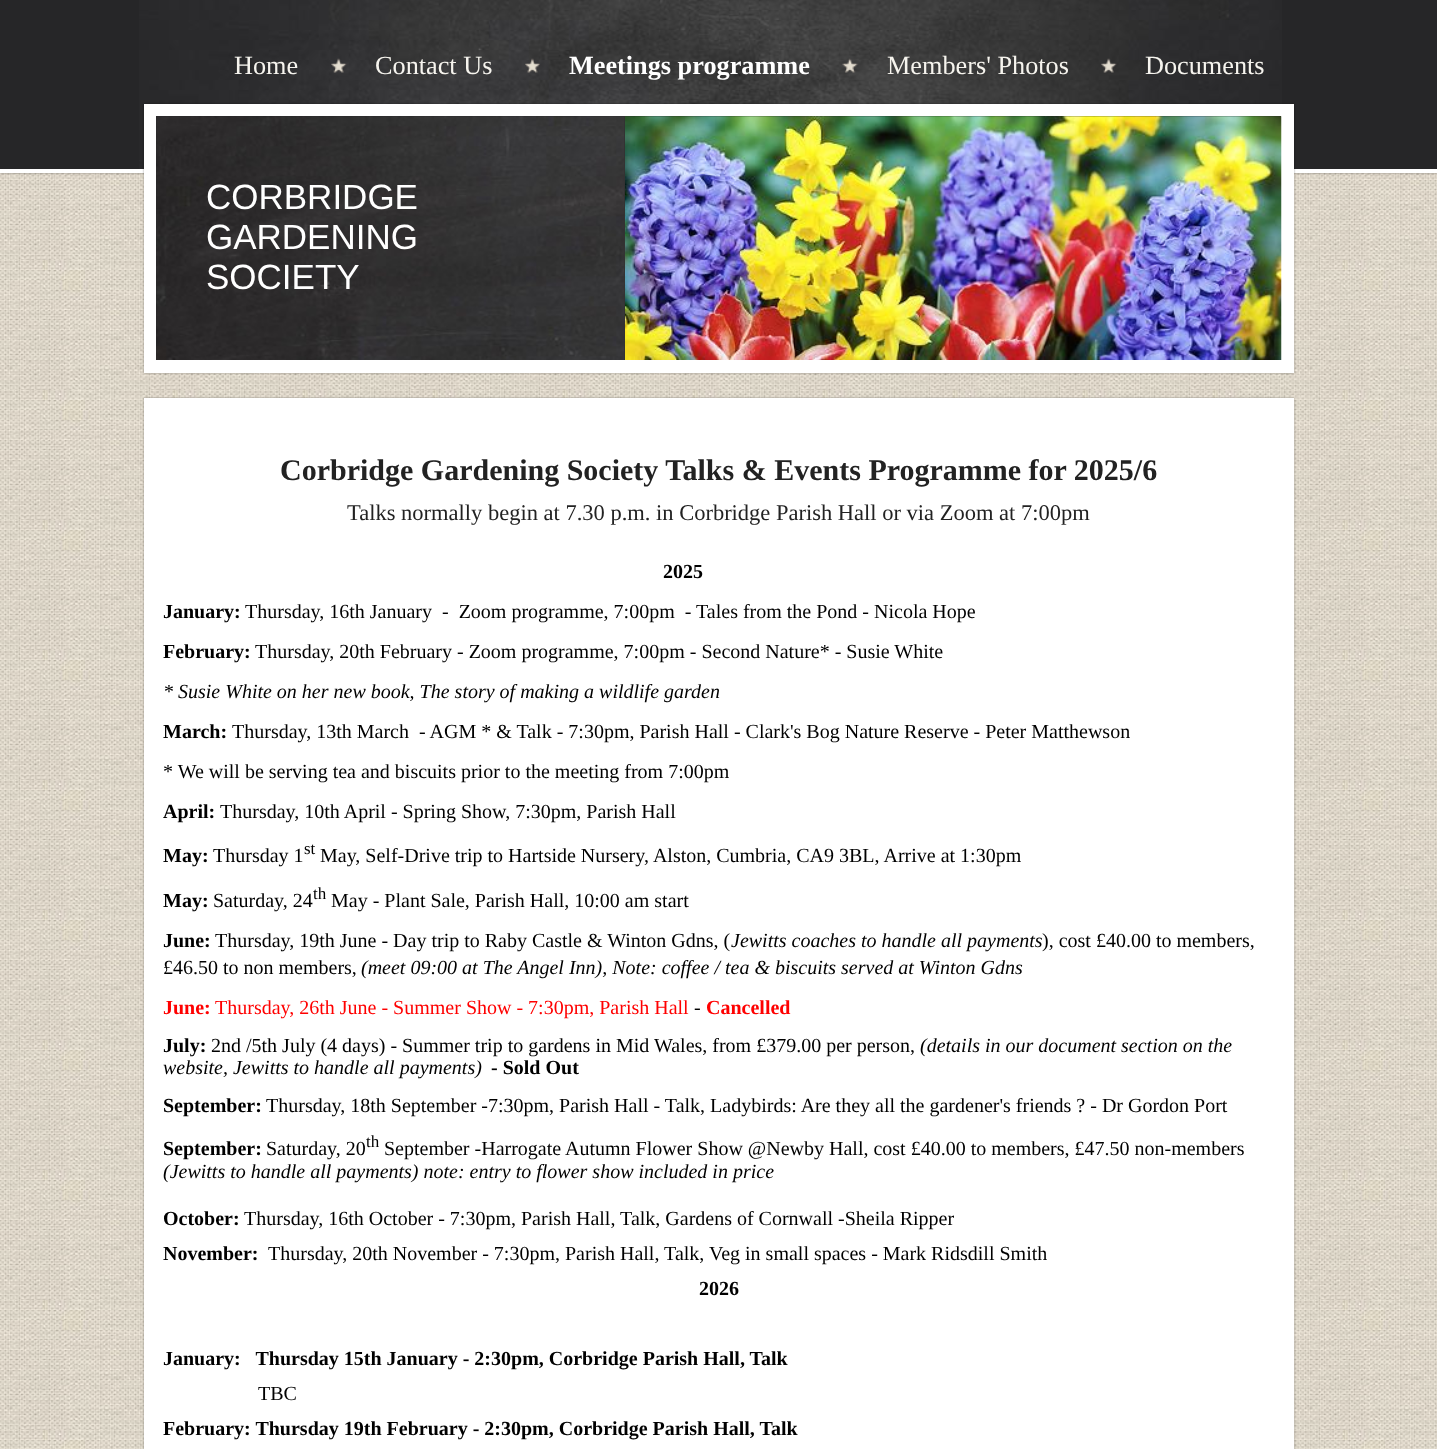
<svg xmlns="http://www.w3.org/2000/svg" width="1437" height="1449">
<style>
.a{font:26.25px Liberation Serif;fill:#f6f4ee}
.b{font:bold 26.25px Liberation Serif;fill:#fff}
.c{font:35px Liberation Sans;fill:#fff}
.d{font:bold 30px Liberation Serif;fill:#222}
.e{font:22.5px Liberation Serif;fill:#222}
.f{font:bold 20px Liberation Serif;fill:#000}
.g{font:20px Liberation Serif;fill:#000}
.h{font:italic 20px Liberation Serif;fill:#000}
.i{font:17px Liberation Serif;fill:#000}
.j{font:bold 20px Liberation Serif;fill:#f00}
.k{font:20px Liberation Serif;fill:#f00}
</style>
<rect width="100%" height="100%" fill="#fff"/>
<image href="1.png" x="0" y="173" width="1437" height="1276"/>
<path fill="#00000073" filter="blur(1px)" d="M0 0h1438v173H0z"/>
<path fill="#262628" d="M0 0h1437v169H0z"/>
<image href="2.png" x="139" y="0" width="1143" height="169"/>
<path fill="#fff" d="M0 169h1437v4H0z"/>
<image href="3.png" x="331" y="58" width="16" height="15"/>
<image href="4.png" x="525" y="58" width="15" height="15"/>
<image href="5.png" x="842" y="58" width="16" height="15"/>
<image href="6.png" x="1101" y="58" width="16" height="15"/>
<path fill="#00000059" filter="blur(1px)" d="M144 104h1150v269H144z"/>
<path fill="#fff" d="M144 104h1150v269H144z"/>
<path fill="#262628" d="M156 116h1125v244H156z"/>
<image href="7.png" x="156" y="116" width="468" height="244"/>
<path fill="#333" d="M624 116h1v244H624z"/>
<image href="8.png" x="625" y="116" width="657" height="244"/>
<path fill="#00000059" filter="blur(1px)" d="M144 398h1150v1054H144z"/>
<path fill="#fff" d="M144 398h1150v1051H144z"/>
<text class="a" x="234" y="74">Home</text>
<text class="a" x="375" y="74">Contact Us</text>
<text class="b" x="569" y="74">Meetings programme</text>
<text class="a" x="887" y="74">Members' Photos</text>
<text class="a" x="1145" y="74">Documents</text>
<text class="c" x="206" y="209">CORBRIDGE</text>
<text class="c" x="206" y="249">GARDENING</text>
<text class="c" x="206" y="289">SOCIETY</text>
<text class="d" x="280" y="480">Corbridge Gardening Society Talks &amp; Events Programme for 2025/6</text>
<text class="e" x="347" y="520">Talks normally begin at 7.30 p.m. in Corbridge Parish Hall or via Zoom at 7:00pm</text>
<text class="f" x="663" y="578">2025</text>
<text class="f" x="163" y="618">January:</text>
<text class="g" xml:space="preserve" x="245" y="618">Thursday, 16th January  -  Zoom programme, 7:00pm  - Tales from the Pond - Nicola Hope</text>
<text class="f" x="163" y="658">February:</text>
<text class="g" x="255" y="658">Thursday, 20th February - Zoom programme, 7:00pm - Second Nature* - Susie White</text>
<text class="h" x="163" y="698">* Susie White on her new book, The story of making a wildlife garden</text>
<text class="f" x="163" y="738">March:</text>
<text class="g" xml:space="preserve" x="232" y="738">Thursday, 13th March  - AGM * &amp; Talk - 7:30pm, Parish Hall - Clark's Bog Nature Reserve - Peter Matthewson</text>
<text class="g" x="163" y="778">* We will be serving tea and biscuits prior to the meeting from 7:00pm</text>
<text class="f" x="163" y="818">April:</text>
<text class="g" x="220" y="818">Thursday, 10th April - Spring Show, 7:30pm, Parish Hall</text>
<text class="f" x="163" y="862">May:</text>
<text class="g" x="213" y="862">Thursday 1</text>
<text class="i" x="304" y="854">st</text>
<text class="g" x="320" y="862">May, Self-Drive trip to Hartside Nursery, Alston, Cumbria, CA9 3BL, Arrive at 1:30pm</text>
<text class="f" x="163" y="907">May:</text>
<text class="g" x="213" y="907">Saturday, 24</text>
<text class="i" x="313" y="899">th</text>
<text class="g" x="331" y="907">May - Plant Sale, Parish Hall, 10:00 am start</text>
<text class="f" x="163" y="947">June:</text>
<text class="g" x="215" y="947">Thursday, 19th June - Day trip to Raby Castle &amp; Winton Gdns, (</text>
<text class="h" x="731" y="947">Jewitts coaches to handle all payments</text>
<text class="g" x="1042" y="947">), cost £40.00 to members,</text>
<text class="g" x="163" y="974">£46.50 to non members,</text>
<text class="h" x="361" y="974">(meet 09:00 at The Angel Inn), Note: coffee / tea &amp; biscuits served at Winton Gdns</text>
<text class="j" x="163" y="1014">June:</text>
<text class="k" x="215" y="1014">Thursday, 26th June - Summer Show - 7:30pm, Parish Hall</text>
<text class="g" x="694" y="1014">-</text>
<text class="j" x="706" y="1014">Cancelled</text>
<text class="f" x="163" y="1052">July:</text>
<text class="g" x="211" y="1052">2nd /5th July (4 days) - Summer trip to gardens in Mid Wales, from £379.00 per person,</text>
<text class="h" x="920" y="1052">(details in our document section on the</text>
<text class="h" x="163" y="1074">website, Jewitts to handle all payments)</text>
<text class="f" x="491" y="1074">- Sold Out</text>
<text class="f" x="163" y="1112">September:</text>
<text class="g" x="266" y="1112">Thursday, 18th September -7:30pm, Parish Hall - Talk, Ladybirds: Are they all the gardener's friends ? - Dr Gordon Port</text>
<text class="f" x="163" y="1155">September:</text>
<text class="g" x="266" y="1155">Saturday, 20</text>
<text class="i" x="366" y="1147">th</text>
<text class="g" x="384" y="1155">September -Harrogate Autumn Flower Show @Newby Hall, cost £40.00 to members, £47.50 non-members</text>
<text class="h" x="163" y="1178">(Jewitts to handle all payments) note: entry to flower show included in price</text>
<text class="f" x="163" y="1225">October:</text>
<text class="g" x="244" y="1225">Thursday, 16th October - 7:30pm, Parish Hall, Talk, Gardens of Cornwall -Sheila Ripper</text>
<text class="f" x="163" y="1260">November:</text>
<text class="g" x="268" y="1260">Thursday, 20th November - 7:30pm, Parish Hall, Talk, Veg in small spaces - Mark Ridsdill Smith</text>
<text class="f" x="699" y="1295">2026</text>
<text class="f" xml:space="preserve" x="163" y="1365">January:   Thursday 15th January - 2:30pm, Corbridge Parish Hall, Talk</text>
<text class="g" x="258" y="1400">TBC</text>
<text class="f" x="163" y="1435">February: Thursday 19th February - 2:30pm, Corbridge Parish Hall, Talk</text>
</svg>
